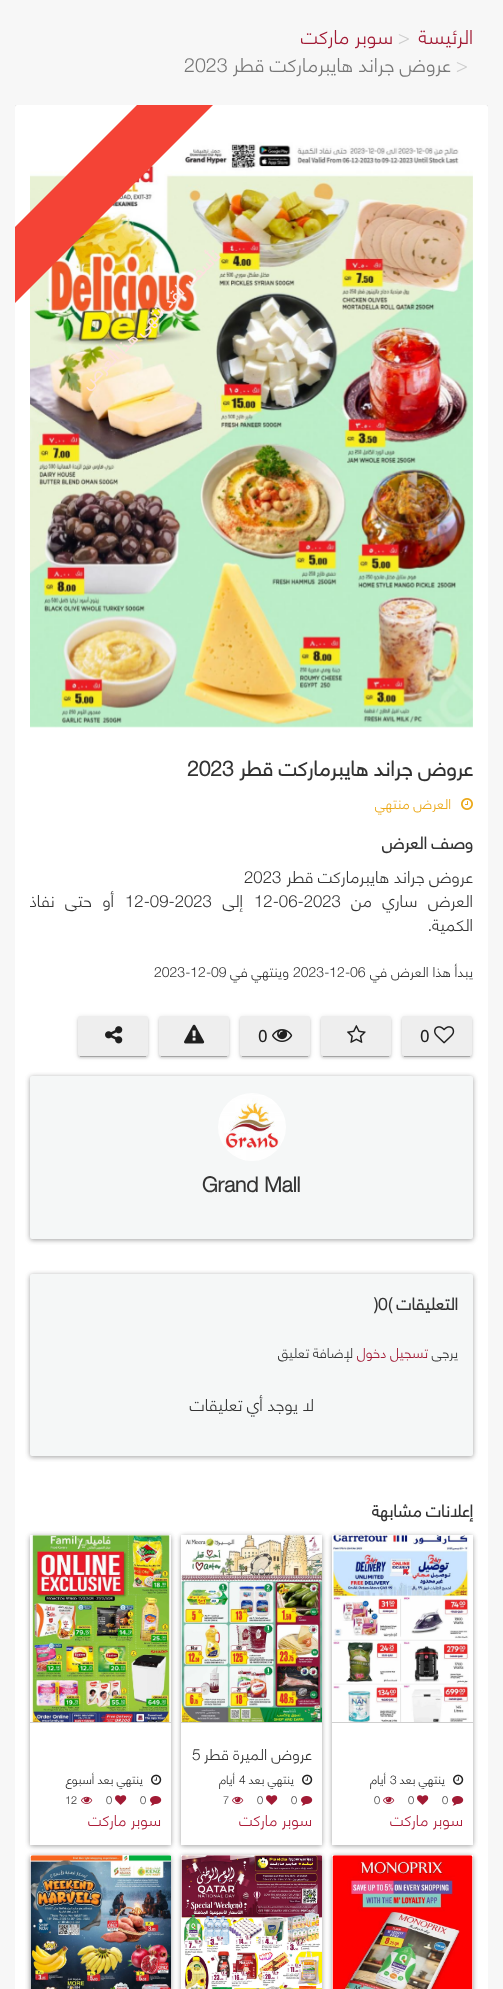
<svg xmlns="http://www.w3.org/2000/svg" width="503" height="1989">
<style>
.a{font:300 19.6px 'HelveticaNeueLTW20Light';direction:rtl;fill:#a11a34}
.b{font:300 19.6px 'HelveticaNeueLTW20Light';fill:#ccc}
.c{font:300 19.6px 'HelveticaNeueLTW20Light';direction:rtl;fill:#777}
.d{font:300 19.6px 'HelveticaNeueLTW20Light';fill:#777}
.e{font:bold 16.75px 'HelveticaNeueLTW20Light';direction:rtl;fill:#fde1df}
.f{font:bold 21px 'HelveticaNeueLTW20Light';direction:rtl;fill:#333}
.g{font:bold 21px 'HelveticaNeueLTW20Light';fill:#333}
.h{font:300 14px 'HelveticaNeueLTW20Light';direction:rtl;fill:#eba818}
.i{font:bold 16.75px 'HelveticaNeueLTW20Light';direction:rtl;fill:#333}
.j{font:300 16.75px 'HelveticaNeueLTW20Light';direction:rtl;fill:#333}
.k{font:300 16.75px 'HelveticaNeueLTW20Light';fill:#333}
.l{font:300 14px 'HelveticaNeueLTW20Light';direction:rtl;fill:#333}
.m{font:300 14px 'HelveticaNeueLTW20Light';fill:#333}
.n{font:500 16.75px Open Sans;fill:#1f1f1f}
.o{font:bold 16.75px 'HelveticaNeueLTW20Light';fill:#333}
.p{font:300 14px 'HelveticaNeueLTW20Light';direction:rtl;fill:#a11a34}
.q{font:300 12px 'HelveticaNeueLTW20Light';direction:rtl;fill:#1f1f1f}
.r{font:300 12px 'HelveticaNeueLTW20Light';fill:#1f1f1f}
.s{font:300 11px 'HelveticaNeueLTW20Light';fill:#333}
.t{font:300 15.5px 'HelveticaNeueLTW20Light';direction:rtl;fill:#ac1c38}
.u{font:300 15.5px 'HelveticaNeueLTW20Light';direction:rtl;fill:#333}
.v{font:300 15.5px 'HelveticaNeueLTW20Light';fill:#333}
</style>
<defs>
<clipPath id="clip1"><path d="M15 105h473v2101H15z"/></clipPath>
<clipPath id="clip2"><path d="M15 105h473v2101H15z"/></clipPath>
</defs>
<rect width="100%" height="100%" fill="#f7f7f7"/>
<g clip-path="url(#clip1)">
<rect fill="#00000030" filter="blur(2.5px)" x="15" y="106" width="473" height="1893" rx="2"/>
<rect fill="#00000033" filter="blur(2.5px)" x="15" y="106" width="473" height="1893" rx="2"/>
</g>
<rect fill="#fff" x="15" y="105" width="473" height="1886" rx="2"/>
<image href="1.png" x="30" y="141" width="443" height="587"/>
<g clip-path="url(#clip2)">
<path fill="#f44336" d="M-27 269l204-204l38 38l-204 204z"/>
</g>
<image href="2.png" x="461" y="798" width="12" height="12"/>
<rect fill="#0000001f" filter="blur(2.5px)" x="402" y="1017" width="70" height="40" rx="2"/>
<path fill="#00000033" filter="blur(0.5px)" d="M404 1021h66v36H404z"/>
<rect fill="#00000024" filter="blur(1px)" x="402" y="1018" width="70" height="40" rx="2"/>
<rect fill="#eee" x="402" y="1016" width="70" height="40" rx="2"/>
<image href="3.png" x="434" y="1026" width="21" height="18"/>
<rect fill="#0000001f" filter="blur(2.5px)" x="321" y="1017" width="70" height="40" rx="2"/>
<path fill="#00000033" filter="blur(0.5px)" d="M323 1021h66v36H323z"/>
<rect fill="#00000024" filter="blur(1px)" x="321" y="1018" width="70" height="40" rx="2"/>
<rect fill="#eee" x="321" y="1016" width="70" height="40" rx="2"/>
<image href="4.png" x="347" y="1025" width="19" height="18"/>
<rect fill="#0000001f" filter="blur(2.5px)" x="240" y="1017" width="70" height="40" rx="2"/>
<path fill="#00000033" filter="blur(0.5px)" d="M242 1021h66v36H242z"/>
<rect fill="#00000024" filter="blur(1px)" x="240" y="1018" width="70" height="40" rx="2"/>
<rect fill="#eee" x="240" y="1016" width="70" height="40" rx="2"/>
<image href="5.png" x="272" y="1029" width="21" height="13"/>
<rect fill="#0000001f" filter="blur(2.5px)" x="159" y="1017" width="70" height="40" rx="2"/>
<path fill="#00000033" filter="blur(0.5px)" d="M161 1021h66v36H161z"/>
<rect fill="#00000024" filter="blur(1px)" x="159" y="1018" width="70" height="40" rx="2"/>
<rect fill="#eee" x="159" y="1016" width="70" height="40" rx="2"/>
<image href="6.png" x="184" y="1024" width="21" height="20"/>
<rect fill="#0000001f" filter="blur(2.5px)" x="78" y="1017" width="70" height="40" rx="2"/>
<path fill="#00000033" filter="blur(0.5px)" d="M80 1021h66v36H80z"/>
<rect fill="#00000024" filter="blur(1px)" x="78" y="1018" width="70" height="40" rx="2"/>
<rect fill="#eee" x="78" y="1016" width="70" height="40" rx="2"/>
<image href="7.png" x="105" y="1026" width="18" height="18"/>
<rect fill="#00000030" filter="blur(2.5px)" x="30" y="1077" width="443" height="163" rx="2"/>
<rect fill="#00000033" filter="blur(2.5px)" x="30" y="1077" width="443" height="163" rx="2"/>
<rect fill="#f5f7f7" x="30" y="1076" width="443" height="163" rx="2"/>
<image href="8.png" x="218" y="1093" width="68" height="68"/>
<rect fill="#00000030" filter="blur(2.5px)" x="30" y="1275" width="443" height="182" rx="2"/>
<rect fill="#00000033" filter="blur(2.5px)" x="30" y="1275" width="443" height="182" rx="2"/>
<rect fill="#f5f7f7" x="30" y="1274" width="443" height="182" rx="2"/>
<rect fill="#00000030" filter="blur(2.5px)" x="332" y="1536" width="141" height="310" rx="2"/>
<rect fill="#00000033" filter="blur(2.5px)" x="332" y="1536" width="141" height="310" rx="2"/>
<path fill="#fff" d="M332 1535h141v310H332z"/>
<path fill="#cfcfcf" d="M332 1722h141v1H332z"/>
<image href="9.png" x="333" y="1535" width="136" height="187"/>
<image href="10.png" x="453" y="1774" width="11" height="11"/>
<image href="11.png" x="452" y="1796" width="12" height="10"/>
<image href="12.png" x="417" y="1795" width="12" height="10"/>
<image href="13.png" x="383" y="1796" width="12" height="8"/>
<rect fill="#00000030" filter="blur(2.5px)" x="181" y="1536" width="141" height="310" rx="2"/>
<rect fill="#00000033" filter="blur(2.5px)" x="181" y="1536" width="141" height="310" rx="2"/>
<path fill="#fff" d="M181 1535h141v310H181z"/>
<path fill="#cfcfcf" d="M181 1722h141v1H181z"/>
<image href="14.png" x="181" y="1535" width="141" height="187"/>
<image href="10.png" x="302" y="1774" width="11" height="11"/>
<image href="11.png" x="301" y="1796" width="12" height="10"/>
<image href="12.png" x="266" y="1795" width="12" height="10"/>
<image href="13.png" x="232" y="1796" width="12" height="8"/>
<rect fill="#00000030" filter="blur(2.5px)" x="30" y="1536" width="141" height="310" rx="2"/>
<rect fill="#00000033" filter="blur(2.5px)" x="30" y="1536" width="141" height="310" rx="2"/>
<path fill="#fff" d="M30 1535h141v310H30z"/>
<path fill="#cfcfcf" d="M30 1722h141v1H30z"/>
<image href="15.png" x="31" y="1535" width="140" height="187"/>
<image href="10.png" x="151" y="1774" width="11" height="11"/>
<image href="11.png" x="150" y="1796" width="12" height="10"/>
<image href="12.png" x="115" y="1795" width="12" height="10"/>
<image href="13.png" x="81" y="1796" width="12" height="8"/>
<rect fill="#00000030" filter="blur(2.5px)" x="332" y="1856" width="141" height="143" rx="2"/>
<rect fill="#00000033" filter="blur(2.5px)" x="332" y="1856" width="141" height="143" rx="2"/>
<path fill="#fff" d="M332 1855h141v134H332z"/>
<image href="16.png" x="332" y="1855" width="141" height="134"/>
<rect fill="#00000030" filter="blur(2.5px)" x="181" y="1856" width="141" height="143" rx="2"/>
<rect fill="#00000033" filter="blur(2.5px)" x="181" y="1856" width="141" height="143" rx="2"/>
<path fill="#fff" d="M181 1855h141v134H181z"/>
<image href="17.png" x="181" y="1855" width="141" height="134"/>
<rect fill="#00000030" filter="blur(2.5px)" x="30" y="1856" width="141" height="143" rx="2"/>
<rect fill="#00000033" filter="blur(2.5px)" x="30" y="1856" width="141" height="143" rx="2"/>
<path fill="#fff" d="M30 1855h141v134H30z"/>
<image href="18.png" x="30" y="1855" width="141" height="134"/>
<text class="a" x="473" y="44">الرئيسة</text>
<text class="b" x="398" y="44">&gt;</text>
<text class="a" x="393" y="44">سوبر ماركت</text>
<text class="b" x="456" y="72">&gt;</text>
<text class="c" x="451" y="72">عروض جراند هايبرماركت قطر</text>
<text class="d" x="184" y="72">2023</text>
<text class="e" x="221" y="257" transform="rotate(-45 221 257)">نأسف، لقد انتهى هذا العرض</text>
<text class="f" x="473" y="776">عروض جراند هايبرماركت قطر</text>
<text class="g" x="187" y="776">2023</text>
<text class="h" x="451" y="809">العرض منتهي</text>
<text class="i" x="473" y="849">وصف العرض</text>
<text class="j" x="473" y="883">عروض جراند هايبرماركت قطر</text>
<text class="k" x="244" y="883">2023</text>
<text class="j" x="473" y="907" word-spacing="6">العرض ساري من</text>
<text class="k" x="254" y="907">12-06-2023</text>
<text class="j" x="243" y="907">إلى</text>
<text class="k" x="125" y="907">12-09-2023</text>
<text class="j" x="114" y="907" word-spacing="6">أو حتى نفاذ</text>
<text class="j" x="473" y="931">الكمية.</text>
<text class="l" x="473" y="977">يبدأ هذا العرض في</text>
<text class="m" x="293" y="977">2023-12-06</text>
<text class="l" x="289" y="977">وينتهي في</text>
<text class="m" x="154" y="977">2023-12-09</text>
<text class="n" x="420" y="1042">0</text>
<text class="n" x="258" y="1042">0</text>
<text class="g" x="202" y="1192">Grand Mall</text>
<text class="i" x="458" y="1310">التعليقات</text>
<text class="o" x="388" y="1310">(</text>
<text class="o" x="378" y="1310">0</text>
<text class="o" x="374" y="1310">)</text>
<text class="l" x="458" y="1358">يرجى</text>
<text class="p" x="428" y="1358">تسجيل دخول</text>
<text class="l" x="353" y="1358">لإضافة تعليق</text>
<text class="j" x="314" y="1411">لا يوجد أي تعليقات</text>
<text class="i" x="473" y="1517">إعلانات مشابهة</text>
<text class="q" x="445" y="1784">ينتهي بعد</text>
<text class="r" x="390" y="1784">3</text>
<text class="q" x="386" y="1784">أيام</text>
<text class="s" x="442" y="1804">0</text>
<text class="s" x="408" y="1804">0</text>
<text class="s" x="374" y="1804">0</text>
<text class="t" x="463" y="1826">سوبر ماركت</text>
<text class="u" x="312" y="1760">عروض الميرة قطر</text>
<text class="v" x="192" y="1760">5</text>
<text class="q" x="294" y="1784">ينتهي بعد</text>
<text class="r" x="239" y="1784">4</text>
<text class="q" x="235" y="1784">أيام</text>
<text class="s" x="291" y="1804">0</text>
<text class="s" x="257" y="1804">0</text>
<text class="s" x="223" y="1804">7</text>
<text class="t" x="312" y="1826">سوبر ماركت</text>
<text class="q" x="143" y="1784">ينتهي بعد أسبوع</text>
<text class="s" x="140" y="1804">0</text>
<text class="s" x="106" y="1804">0</text>
<text class="s" x="65" y="1804">12</text>
<text class="t" x="161" y="1826">سوبر ماركت</text>
</svg>
